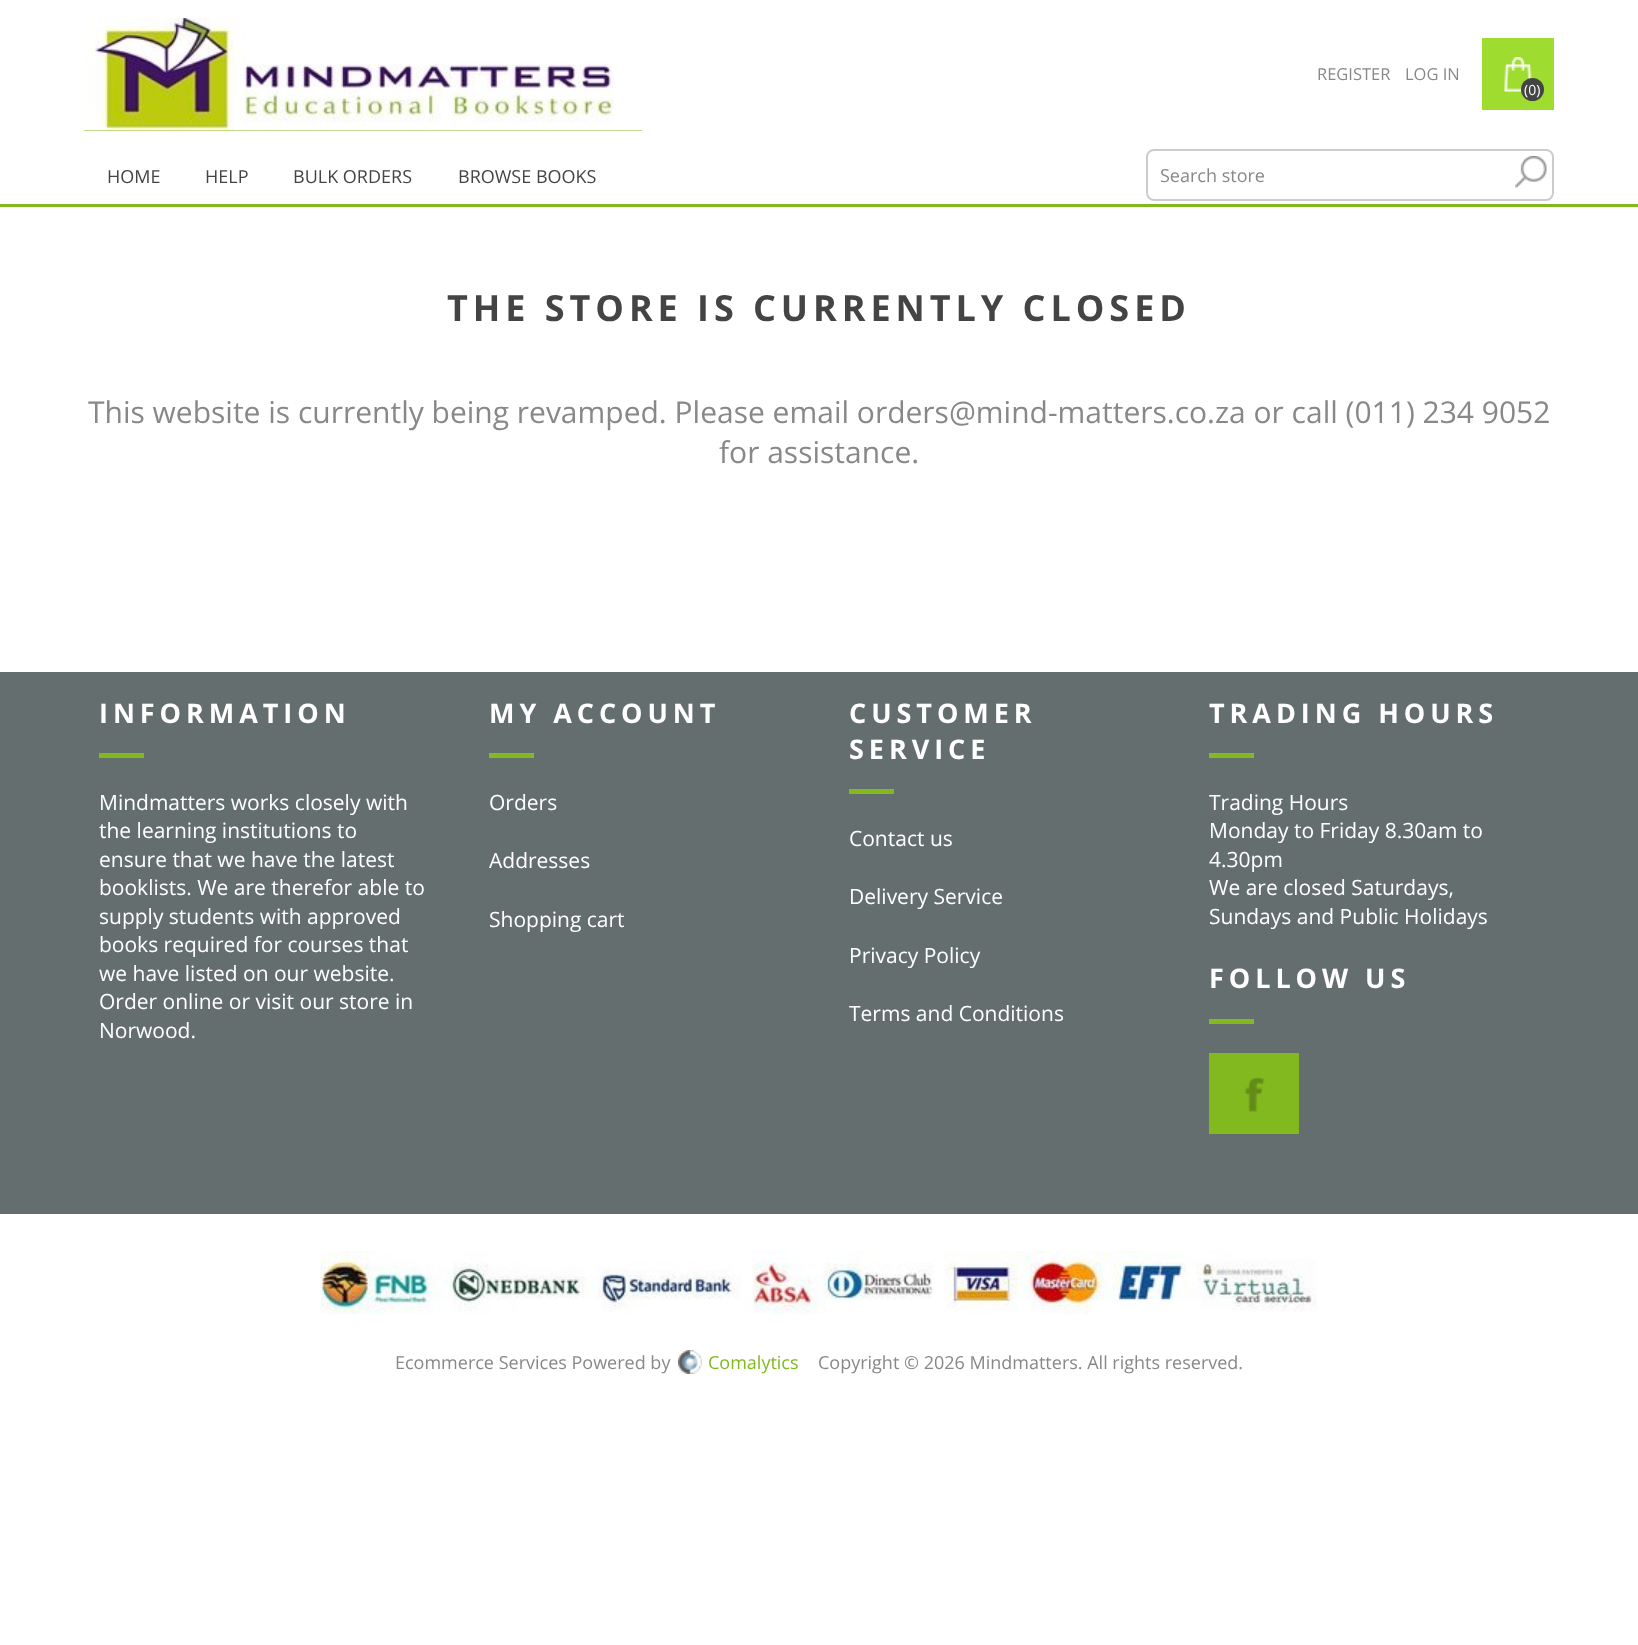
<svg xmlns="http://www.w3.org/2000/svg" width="1638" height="1645">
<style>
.a{font:18px Open Sans;fill:#444}
.b{font:16.5px Open Sans;fill:#888}
.c{font:14px Open Sans;fill:#fff}
.d{font:18px Open Sans;fill:#888}
.e{font:bold 36px Open Sans;letter-spacing:4.95px;fill:#444}
.f{font:30px Open Sans;fill:#888}
.g{font:bold 27px Open Sans;letter-spacing:4.95px;fill:#fff}
.h{font:21px Open Sans;fill:#fff}
.i{font:18px Open Sans;fill:#82b91f}
</style>
<rect width="100%" height="100%" fill="#fff"/>
<path fill="#82b91f" d="M0 204h1638v3H0z"/>
<path fill="#82b91f" d="M84 130h558v1H84z"/>
<image href="1.png" x="84" y="18" width="558" height="113"/>
<path fill="#9edc2f" d="M1482 38h72v72H1482z"/>
<image href="2.png" x="1504" y="57" width="28" height="35"/>
<circle fill="#444" cx="1532.5" cy="89.5" r="11.5"/>
<rect fill="none" stroke="#ccc" stroke-width="2" x="1147" y="150" width="406" height="50" rx="7"/>
<image href="3.png" x="1515" y="156" width="32" height="32"/>
<path fill="#646e6f" d="M0 672h1638v542H0z"/>
<path fill="#82b91f" d="M99 753h45v5H99z"/>
<path fill="#82b91f" d="M489 753h45v5H489z"/>
<path fill="#82b91f" d="M849 789h45v5H849z"/>
<path fill="#82b91f" d="M1209 753h45v5H1209z"/>
<path fill="#82b91f" d="M1209 1019h45v5H1209z"/>
<path fill="#82b91f" d="M1209 1053h90v81H1209z"/>
<image href="4.png" x="1245" y="1077" width="20" height="35"/>
<image href="5.png" x="320" y="1251" width="997" height="63"/>
<image href="6.png" x="678" y="1350" width="24" height="24"/>
<text class="a" x="107" y="183">HOME</text>
<text class="a" x="205" y="183">HELP</text>
<text class="a" x="293" y="183">BULK ORDERS</text>
<text class="a" x="458" y="183">BROWSE BOOKS</text>
<text class="b" x="1317" y="80">REGISTER</text>
<text class="b" x="1405" y="80">LOG IN</text>
<text class="c" x="1524" y="95">(0)</text>
<text class="d" x="1160" y="182">Search store</text>
<text class="e" x="447" y="321">THE STORE IS CURRENTLY CLOSED</text>
<text class="f" x="88" y="423">This website is currently being revamped. Please email orders@mind-matters.co.za or call (011) 234 9052</text>
<text class="f" x="719" y="463">for assistance.</text>
<text class="g" x="99" y="723">INFORMATION</text>
<text class="h" x="99" y="810">Mindmatters works closely with</text>
<text class="h" x="99" y="838">the learning institutions to</text>
<text class="h" x="99" y="867">ensure that we have the latest</text>
<text class="h" x="99" y="895">booklists. We are therefor able to</text>
<text class="h" x="99" y="924">supply students with approved</text>
<text class="h" x="99" y="952">books required for courses that</text>
<text class="h" x="99" y="981">we have listed on our website.</text>
<text class="h" x="99" y="1009">Order online or visit our store in</text>
<text class="h" x="99" y="1038">Norwood.</text>
<text class="g" x="489" y="723">MY ACCOUNT</text>
<text class="h" x="489" y="810">Orders</text>
<text class="h" x="489" y="868">Addresses</text>
<text class="h" x="489" y="927">Shopping cart</text>
<text class="g" x="849" y="723">CUSTOMER</text>
<text class="g" x="849" y="759">SERVICE</text>
<text class="h" x="849" y="846">Contact us</text>
<text class="h" x="849" y="904">Delivery Service</text>
<text class="h" x="849" y="963">Privacy Policy</text>
<text class="h" x="849" y="1021">Terms and Conditions</text>
<text class="g" x="1209" y="723">TRADING HOURS</text>
<text class="h" x="1209" y="810">Trading Hours</text>
<text class="h" x="1209" y="838">Monday to Friday 8.30am to</text>
<text class="h" x="1209" y="867">4.30pm</text>
<text class="h" x="1209" y="895">We are closed Saturdays,</text>
<text class="h" x="1209" y="924">Sundays and Public Holidays</text>
<text class="g" x="1209" y="988">FOLLOW US</text>
<text class="d" x="395" y="1369">Ecommerce Services Powered by</text>
<text class="i" x="708" y="1369">Comalytics</text>
<text class="d" x="818" y="1369">Copyright © 2026 Mindmatters. All rights reserved.</text>
</svg>
